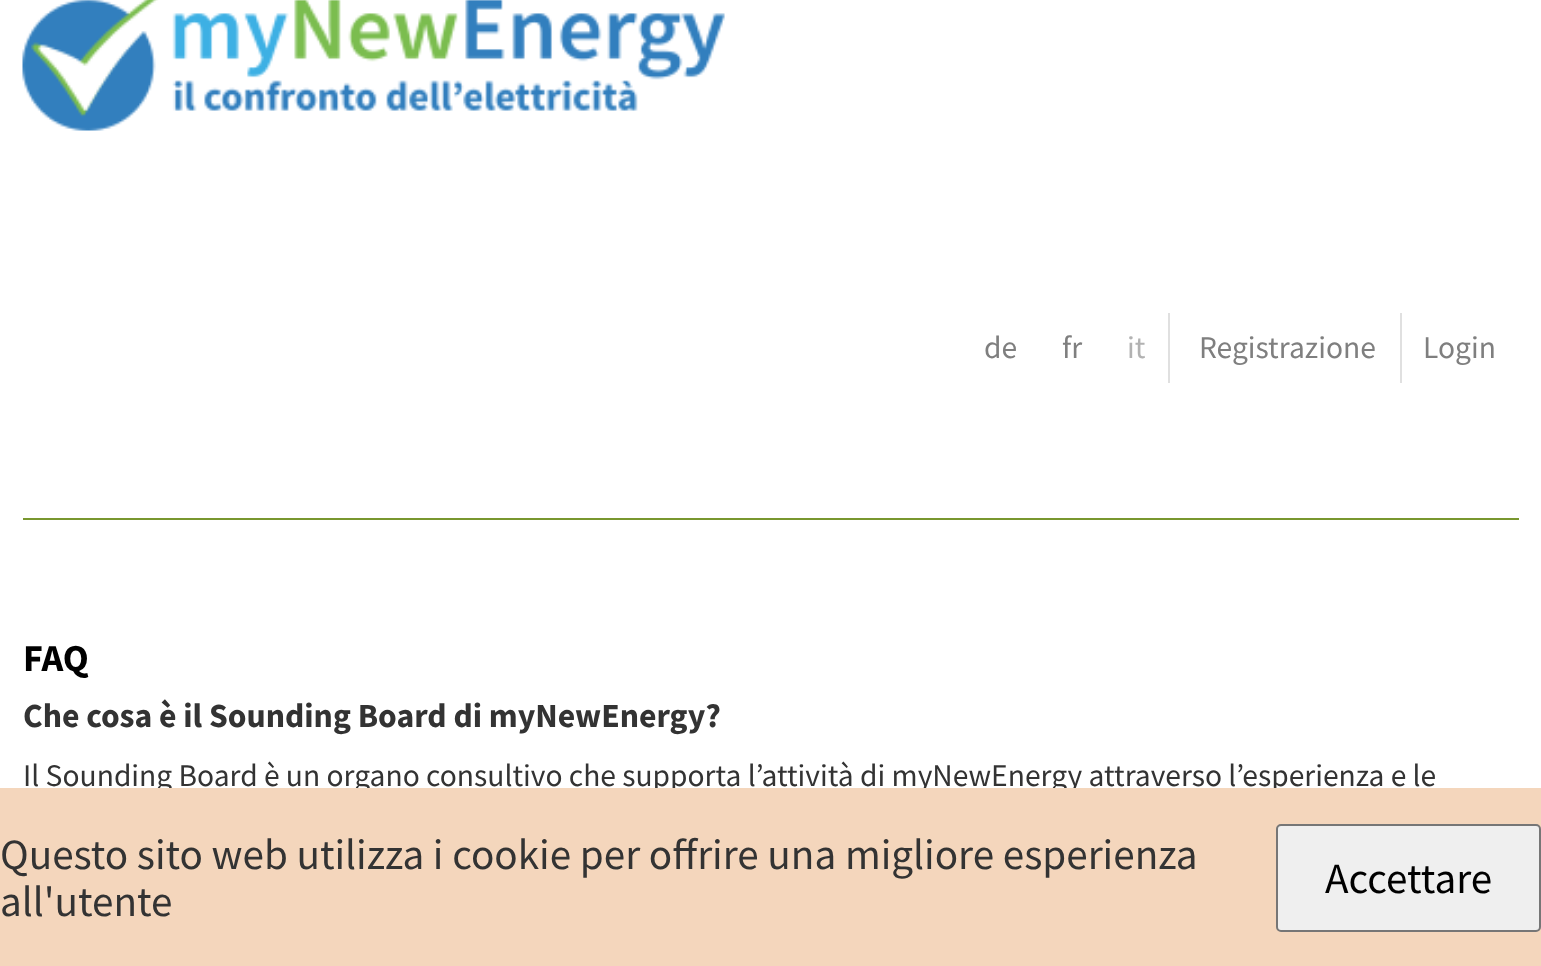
<svg xmlns="http://www.w3.org/2000/svg" width="1541" height="966">
<style>
.a{font:31.5px Source Sans Pro;fill:#7f7f7f}
.b{font:31.5px Source Sans Pro;fill:#b2b2b2}
.c{font:bold 38px Source Sans Pro;fill:#000}
.d{font:bold 33.75px Source Sans Pro;fill:#333}
.e{font:31.5px Source Sans Pro;fill:#333}
.f{font:43.2px Source Sans Pro;fill:#333}
.g{font:43.2px Source Sans Pro;fill:#000}
</style>
<rect width="100%" height="100%" fill="#fff"/>
<image href="1.png" x="22" y="0" width="703" height="131"/>
<path fill="#79972f" d="M23 518h1496v2H23z"/>
<path fill="#e0e0e0" d="M1168 313h2v70H1168z"/>
<path fill="#e0e0e0" d="M1400 313h2v70H1400z"/>
<text class="a" x="984" y="358">de</text>
<text class="a" x="1062" y="358">fr</text>
<text class="b" x="1127" y="358">it</text>
<text class="a" x="1199" y="358">Registrazione</text>
<text class="a" x="1423" y="358">Login</text>
<text class="c" x="23" y="671">FAQ</text>
<text class="d" x="23" y="727">Che cosa è il Sounding Board di myNewEnergy?</text>
<text class="e" x="23" y="786">Il Sounding Board è un organo consultivo che supporta l’attività di myNewEnergy attraverso l’esperienza e le</text>
<path fill="#f4d6bc" d="M0 788h1541v178H0z"/>
<text class="f" x="0" y="869">Questo sito web utilizza i cookie per offrire una migliore esperienza</text>
<text class="f" x="0" y="916">all'utente</text>
<rect fill="#efefef" stroke="#767676" stroke-width="2" x="1277" y="825" width="263" height="106" rx="4"/>
<text class="g" x="1325" y="893">Accettare</text>
</svg>
